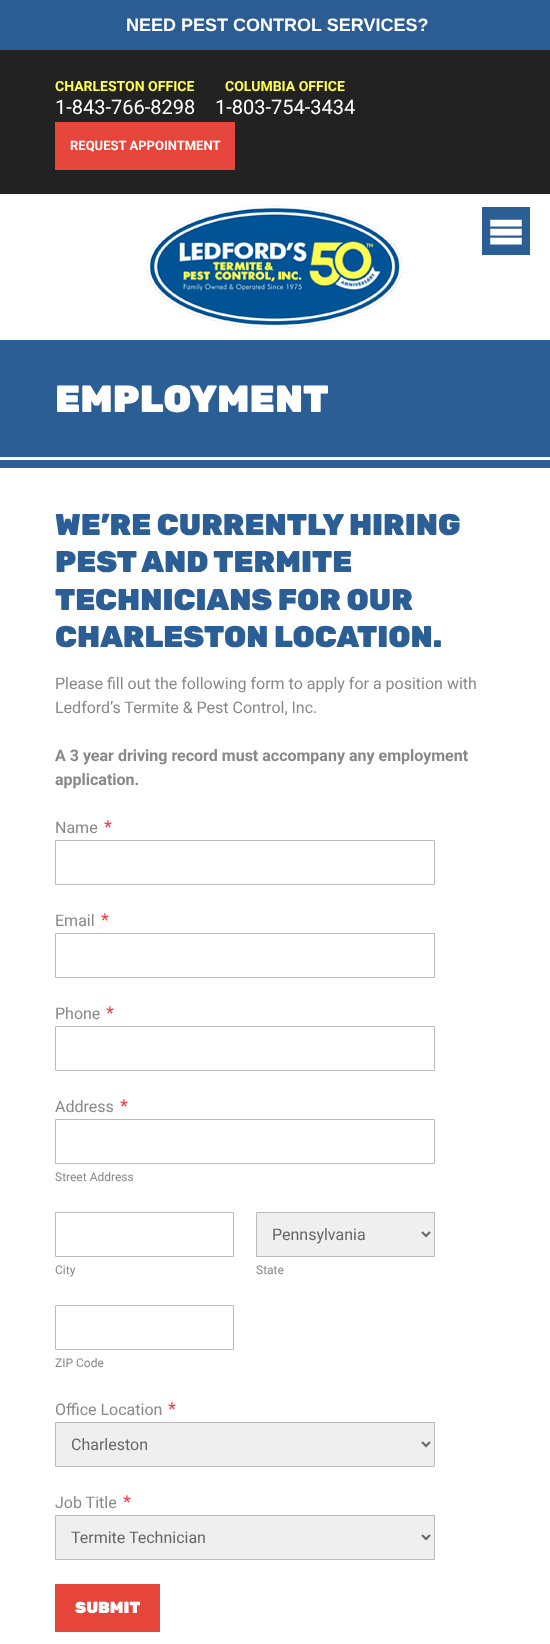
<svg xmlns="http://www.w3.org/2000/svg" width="550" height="1644">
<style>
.a{font:bold 18px Liberation Sans;fill:#fff}
.b{font:bold 14px Roboto;fill:#fffc50}
.c{font:20px Roboto;fill:#fff}
.d{font:bold 13px Roboto;fill:#fff}
.e{font:900 38px Rubik;fill:#fff}
.f{font:900 30px Rubik;fill:#2b5e95}
.g{font:16px Roboto;fill:#888}
.h{font:bold 16px Roboto;fill:#888}
.i{font:18px Roboto;fill:#fc3844}
.j{font:12px Roboto;fill:#888}
.k{font:16px Roboto;fill:#666}
.l{font:900 16px Rubik;fill:#fff}
</style>
<rect width="100%" height="100%" fill="#222"/>
<path fill="#2b5d94" d="M0 0h550v50H0z"/>
<path fill="#e6453b" d="M55 122h180v48H55z"/>
<path fill="#fff" d="M0 194h550v146H0z"/>
<image href="1.png" x="147" y="205" width="255" height="123"/>
<path fill="#2b5e95" d="M482 207h48v48H482z"/>
<image href="2.png" x="490" y="219" width="32" height="26"/>
<path fill="#2b5e95" d="M0 340h550v128H0z"/>
<path fill="#fff" d="M0 457h550v3H0z"/>
<path fill="#fff" d="M0 468h550v1176H0z"/>
<path fill="none" stroke="#bbb" d="M55.5 840.5h379v44H55.5z"/>
<path fill="none" stroke="#bbb" d="M55.5 933.5h379v44H55.5z"/>
<path fill="none" stroke="#bbb" d="M55.5 1026.5h379v44H55.5z"/>
<path fill="none" stroke="#bbb" d="M55.5 1119.5h379v44H55.5z"/>
<path fill="none" stroke="#bbb" d="M55.5 1212.5h178v44H55.5z"/>
<path fill="#efefef" stroke="#bbb" d="M256.5 1212.5h178v44H256.5z"/>
<path fill="none" stroke="#666" stroke-width="2" d="M422 1232l4 4l4-4"/>
<path fill="none" stroke="#bbb" d="M55.5 1305.5h178v44H55.5z"/>
<path fill="#efefef" stroke="#bbb" d="M55.5 1422.5h379v44H55.5z"/>
<path fill="none" stroke="#666" stroke-width="2" d="M422 1442l4 4l4-4"/>
<path fill="#efefef" stroke="#bbb" d="M55.5 1515.5h379v44H55.5z"/>
<path fill="none" stroke="#666" stroke-width="2" d="M422 1535l4 4l4-4"/>
<path fill="#e6453b" d="M55 1584h105v48H55z"/>
<text class="a" x="126" y="31">NEED PEST CONTROL SERVICES?</text>
<text class="b" x="55" y="91">CHARLESTON OFFICE</text>
<text class="c" x="55" y="114">1-843-766-8298</text>
<text class="b" x="225" y="91">COLUMBIA OFFICE</text>
<text class="c" x="215" y="114">1-803-754-3434</text>
<text class="d" x="70" y="150">REQUEST APPOINTMENT</text>
<text class="e" x="55" y="412">EMPLOYMENT</text>
<text class="f" x="55" y="535">WE’RE CURRENTLY HIRING</text>
<text class="f" x="55" y="572">PEST AND TERMITE</text>
<text class="f" x="55" y="610">TECHNICIANS FOR OUR</text>
<text class="f" x="55" y="647">CHARLESTON LOCATION.</text>
<text class="g" x="55" y="689">Please fill out the following form to apply for a position with</text>
<text class="g" x="55" y="713">Ledford’s Termite &amp; Pest Control, Inc.</text>
<text class="h" x="55" y="761">A 3 year driving record must accompany any employment</text>
<text class="h" x="55" y="785">application.</text>
<text class="g" x="55" y="833">Name</text>
<text class="i" x="104" y="833">*</text>
<text class="g" x="55" y="926">Email</text>
<text class="i" x="101" y="926">*</text>
<text class="g" x="55" y="1019">Phone</text>
<text class="i" x="106" y="1019">*</text>
<text class="g" x="55" y="1112">Address</text>
<text class="i" x="120" y="1112">*</text>
<text class="j" x="55" y="1181">Street Address</text>
<text class="j" x="55" y="1274">City</text>
<text class="k" x="272" y="1240">Pennsylvania</text>
<text class="j" x="256" y="1274">State</text>
<text class="j" x="55" y="1367">ZIP Code</text>
<text class="g" x="55" y="1415">Office Location</text>
<text class="i" x="168" y="1415">*</text>
<text class="k" x="71" y="1450">Charleston</text>
<text class="g" x="55" y="1508">Job Title</text>
<text class="i" x="123" y="1508">*</text>
<text class="k" x="71" y="1543">Termite Technician</text>
<text class="l" x="75" y="1613">SUBMIT</text>
</svg>
